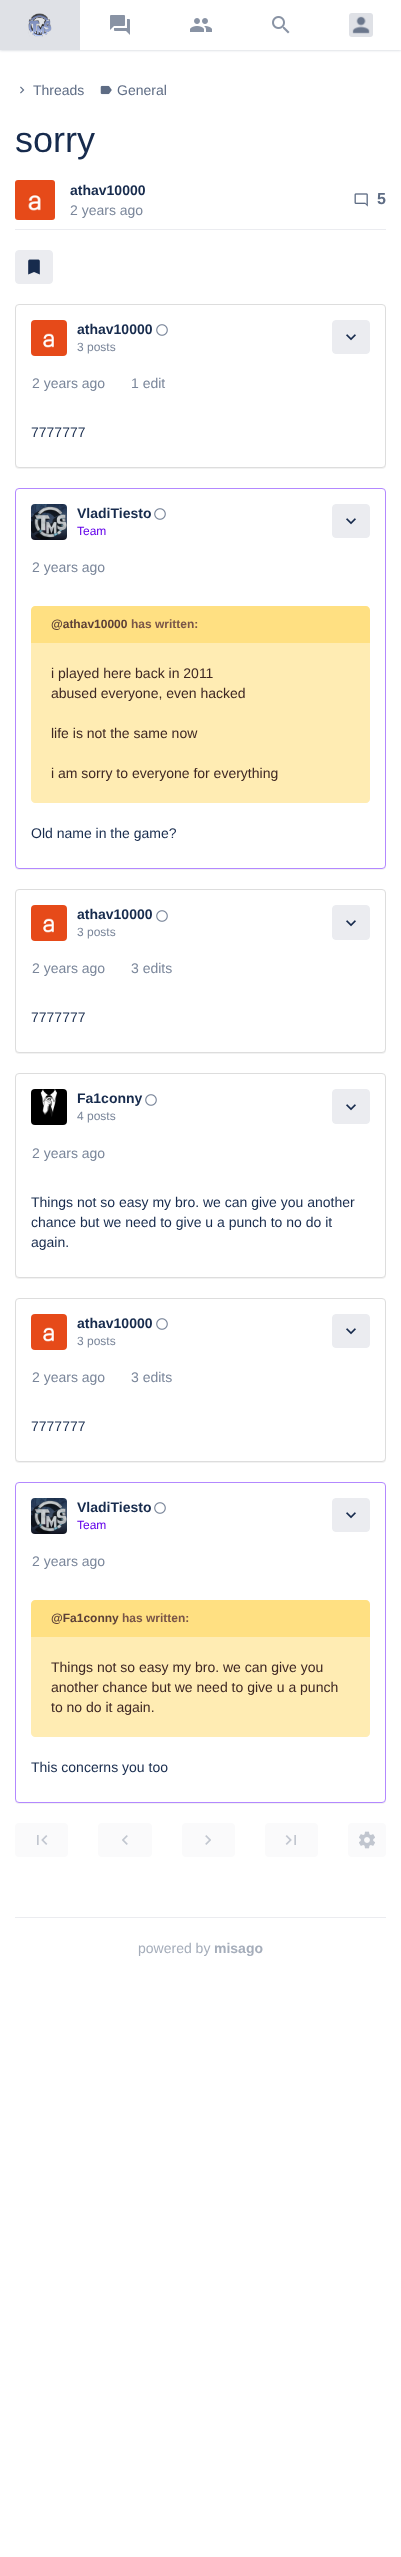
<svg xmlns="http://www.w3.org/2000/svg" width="401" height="2557">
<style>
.a{font:14px Liberation Sans;fill:#5e6c84}
.b{font:36px Liberation Sans;fill:#172b4d}
.c{font:bold 14px Liberation Sans;fill:#172b4d}
.d{font:14px Liberation Sans;fill:#7a869a}
.e{font:bold 16px Liberation Sans;fill:#5e6c84}
.f{font:12px Liberation Sans;fill:#7a869a}
.g{font:14px Liberation Sans;fill:#172b4d}
.h{font:12px Liberation Sans;fill:#6200ea}
.i{font:bold 12px Liberation Sans;fill:#5d4037}
.j{font:bold 12px Liberation Sans;fill:#795548}
.k{font:14px Liberation Sans;fill:#3e2723}
.l{font:14px Liberation Sans;fill:#a5adba}
.m{font:bold 14px Liberation Sans;fill:#a5adba}
</style>
<defs>
<clipPath id="clip1"><path d="M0 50h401v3H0z"/></clipPath>
</defs>
<rect width="100%" height="100%" fill="#fff"/>
<g clip-path="url(#clip1)">
<path fill="#c1c7d0" filter="blur(1.5px)" d="M0 0h401v50H0z"/>
</g>
<path fill="#dfe1e6" d="M0 0h80v50H0z"/>
<image href="1.png" x="28" y="13" width="24" height="24"/>
<image href="2.png" x="110" y="15" width="20" height="20"/>
<image href="3.png" x="190" y="18" width="22" height="14"/>
<image href="4.png" x="272" y="16" width="18" height="18"/>
<image href="5.png" x="349" y="13" width="24" height="24"/>
<path fill="#ebecf0" d="M15 229h371v1H15z"/>
<image href="6.png" x="20" y="86" width="5" height="8"/>
<image href="7.png" x="100" y="85" width="12" height="10"/>
<image href="8.png" x="15" y="180" width="40" height="40"/>
<image href="9.png" x="354" y="193" width="14" height="14"/>
<rect fill="#ebecf0" stroke="#ebecf0" x="15.5" y="250.5" width="37" height="33" rx="3.5"/>
<image href="10.png" x="28" y="259" width="12" height="16"/>
<rect fill="#0000000d" filter="blur(0.5px)" x="15" y="305" width="371" height="164" rx="4"/>
<rect fill="#fff" stroke="#ddd" x="15.5" y="304.5" width="370" height="163" rx="3.5"/>
<image href="11.png" x="31" y="320" width="36" height="36"/>
<image href="12.png" x="156" y="324" width="12" height="12"/>
<rect fill="#ebecf0" stroke="#ebecf0" x="332.5" y="320.5" width="37" height="33" rx="3.5"/>
<image href="13.png" x="346" y="334" width="10" height="7"/>
<rect fill="#0000000d" filter="blur(0.5px)" x="15" y="489" width="371" height="381" rx="4"/>
<rect fill="#fff" stroke="#b388ff" x="15.5" y="488.5" width="370" height="380" rx="3.5"/>
<image href="14.png" x="31" y="504" width="36" height="36"/>
<image href="12.png" x="154" y="508" width="12" height="12"/>
<rect fill="#ebecf0" stroke="#ebecf0" x="332.5" y="504.5" width="37" height="33" rx="3.5"/>
<image href="13.png" x="346" y="518" width="10" height="7"/>
<path fill="#ffe082" d="M35 606h331c2 0 4 2 4 4v33h-339v-33c0-2 2-4 4-4z"/>
<path fill="#ffecb3" d="M31 643h339v156c0 2-2 4-4 4h-331c-2 0-4-2-4-4z"/>
<rect fill="#0000000d" filter="blur(0.5px)" x="15" y="890" width="371" height="164" rx="4"/>
<rect fill="#fff" stroke="#ddd" x="15.5" y="889.5" width="370" height="163" rx="3.5"/>
<image href="11.png" x="31" y="905" width="36" height="36"/>
<image href="12.png" x="156" y="910" width="12" height="12"/>
<rect fill="#ebecf0" stroke="#ebecf0" x="332.5" y="905.5" width="37" height="34" rx="3.5"/>
<image href="13.png" x="346" y="920" width="10" height="7"/>
<rect fill="#0000000d" filter="blur(0.5px)" x="15" y="1074" width="371" height="205" rx="4"/>
<rect fill="#fff" stroke="#ddd" x="15.5" y="1073.5" width="370" height="204" rx="3.5"/>
<image href="15.png" x="31" y="1089" width="36" height="36"/>
<image href="12.png" x="145" y="1094" width="12" height="12"/>
<rect fill="#ebecf0" stroke="#ebecf0" x="332.5" y="1089.5" width="37" height="34" rx="3.5"/>
<image href="13.png" x="346" y="1104" width="10" height="7"/>
<rect fill="#0000000d" filter="blur(0.5px)" x="15" y="1299" width="371" height="164" rx="4"/>
<rect fill="#fff" stroke="#ddd" x="15.5" y="1298.5" width="370" height="163" rx="3.5"/>
<image href="11.png" x="31" y="1314" width="36" height="36"/>
<image href="12.png" x="156" y="1318" width="12" height="12"/>
<rect fill="#ebecf0" stroke="#ebecf0" x="332.5" y="1314.5" width="37" height="33" rx="3.5"/>
<image href="13.png" x="346" y="1328" width="10" height="7"/>
<rect fill="#0000000d" filter="blur(0.5px)" x="15" y="1483" width="371" height="321" rx="4"/>
<rect fill="#fff" stroke="#b388ff" x="15.5" y="1482.5" width="370" height="320" rx="3.5"/>
<image href="16.png" x="31" y="1498" width="36" height="36"/>
<image href="12.png" x="154" y="1502" width="12" height="12"/>
<rect fill="#ebecf0" stroke="#ebecf0" x="332.5" y="1498.5" width="37" height="33" rx="3.5"/>
<image href="13.png" x="346" y="1512" width="10" height="7"/>
<path fill="#ffe082" d="M35 1600h331c2 0 4 2 4 4v33h-339v-33c0-2 2-4 4-4z"/>
<path fill="#ffecb3" d="M31 1637h339v96c0 2-2 4-4 4h-331c-2 0-4-2-4-4z"/>
<rect fill="#fafafb" x="15" y="1823" width="53" height="34" rx="4"/>
<image href="17.png" x="37" y="1835" width="11" height="10"/>
<rect fill="#fafafb" x="98" y="1823" width="54" height="34" rx="4"/>
<image href="18.png" x="122" y="1835" width="6" height="10"/>
<rect fill="#fafafb" x="182" y="1823" width="53" height="34" rx="4"/>
<image href="19.png" x="205" y="1835" width="6" height="10"/>
<rect fill="#fafafb" x="265" y="1823" width="53" height="34" rx="4"/>
<image href="20.png" x="285" y="1835" width="11" height="10"/>
<rect fill="#fafafb" x="348" y="1823" width="38" height="34" rx="4"/>
<image href="21.png" x="359" y="1831" width="16" height="18"/>
<path fill="#ebecf0" d="M15 1917h371v1H15z"/>
<text class="a" x="33" y="95">Threads</text>
<text class="a" x="117" y="95">General</text>
<text class="b" x="15" y="152">sorry</text>
<text class="c" x="70" y="195">athav10000</text>
<text class="d" x="70" y="215">2 years ago</text>
<text class="e" x="377" y="204">5</text>
<text class="c" x="77" y="334">athav10000</text>
<text class="f" x="77" y="351">3 posts</text>
<text class="d" x="32" y="388">2 years ago</text>
<text class="d" x="131" y="388">1 edit</text>
<text class="g" x="31" y="437">7777777</text>
<text class="c" x="77" y="518">VladiTiesto</text>
<text class="h" x="77" y="535">Team</text>
<text class="d" x="32" y="572">2 years ago</text>
<text class="i" x="51" y="628">@athav10000</text>
<text class="j" x="131" y="628">has written:</text>
<text class="k" x="51" y="678">i played here back in 2011</text>
<text class="k" x="51" y="698">abused everyone, even hacked</text>
<text class="k" x="51" y="738">life is not the same now</text>
<text class="k" x="51" y="778">i am sorry to everyone for everything</text>
<text class="g" x="31" y="838">Old name in the game?</text>
<text class="c" x="77" y="919">athav10000</text>
<text class="f" x="77" y="936">3 posts</text>
<text class="d" x="32" y="973">2 years ago</text>
<text class="d" x="131" y="973">3 edits</text>
<text class="g" x="31" y="1022">7777777</text>
<text class="c" x="77" y="1103">Fa1conny</text>
<text class="f" x="77" y="1120">4 posts</text>
<text class="d" x="32" y="1158">2 years ago</text>
<text class="g" x="31" y="1207">Things not so easy my bro. we can give you another</text>
<text class="g" x="31" y="1227">chance but we need to give u a punch to no do it</text>
<text class="g" x="31" y="1247">again.</text>
<text class="c" x="77" y="1328">athav10000</text>
<text class="f" x="77" y="1345">3 posts</text>
<text class="d" x="32" y="1382">2 years ago</text>
<text class="d" x="131" y="1382">3 edits</text>
<text class="g" x="31" y="1431">7777777</text>
<text class="c" x="77" y="1512">VladiTiesto</text>
<text class="h" x="77" y="1529">Team</text>
<text class="d" x="32" y="1566">2 years ago</text>
<text class="i" x="51" y="1622">@Fa1conny</text>
<text class="j" x="122" y="1622">has written:</text>
<text class="k" x="51" y="1672">Things not so easy my bro. we can give you</text>
<text class="k" x="51" y="1692">another chance but we need to give u a punch</text>
<text class="k" x="51" y="1712">to no do it again.</text>
<text class="g" x="31" y="1772">This concerns you too</text>
<text class="l" x="138" y="1953">powered by</text>
<text class="m" x="214" y="1953">misago</text>
</svg>
